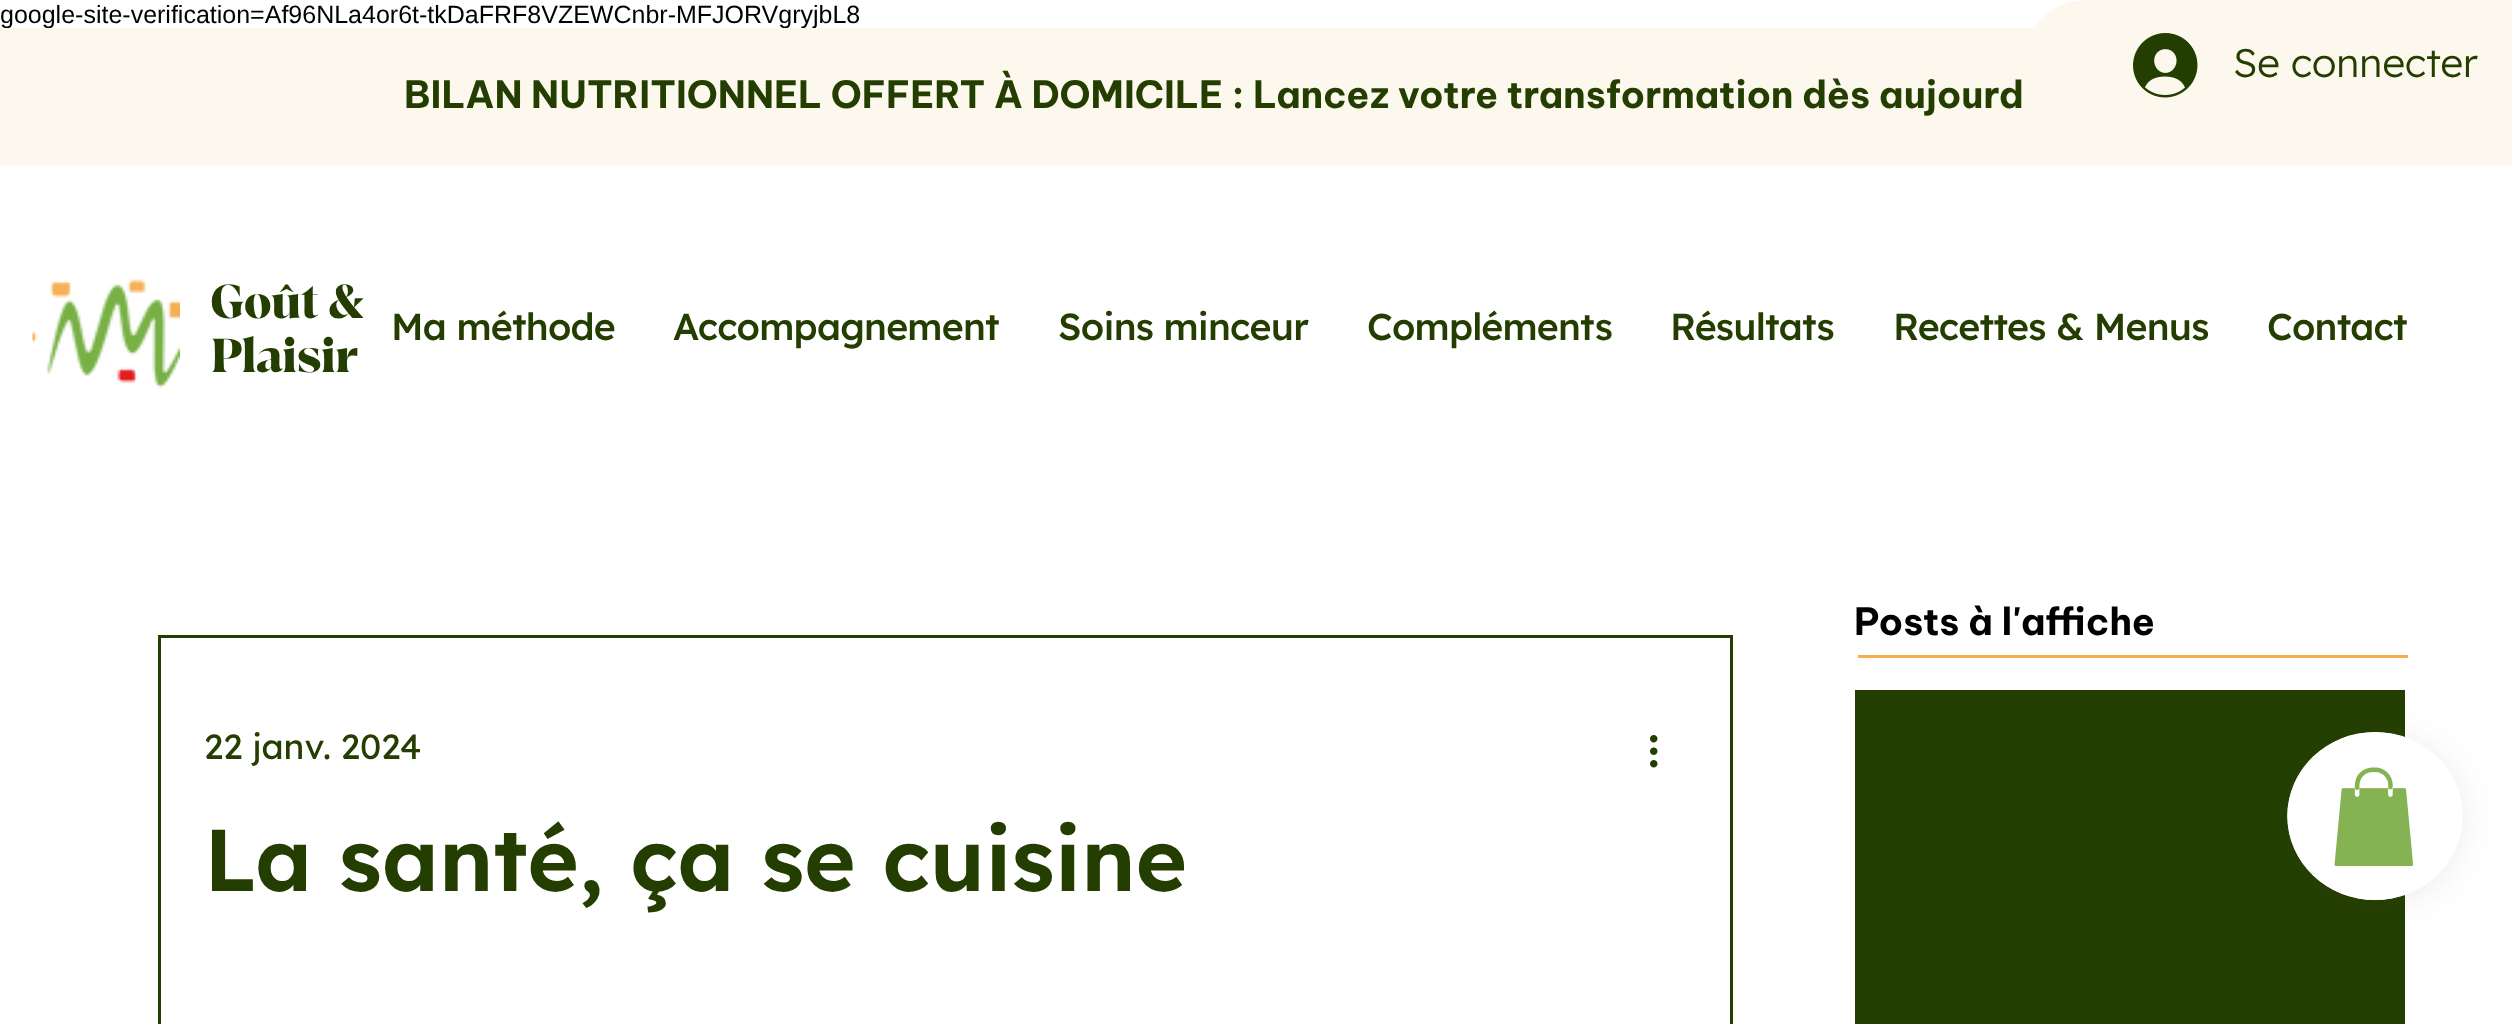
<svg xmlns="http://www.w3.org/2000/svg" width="2512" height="1024">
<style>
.a{font:25px Liberation Sans;fill:#000}
.b{font:300 40px Lexend;fill:#233e00}
.c{font:bold 37.5px Be Vietnam Pro;fill:#233e00}
.d{font:bold 47.5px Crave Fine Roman;fill:#233e00}
.e{font:500 37.5px Lexend;letter-spacing:-0.75px;fill:#233e00}
.f{font:bold 37.5px Be Vietnam Pro;fill:#000}
.g{font:35px Lexend;fill:#233e00}
.h{font:600 87.5px Lexend;fill:#233e00}
</style>
<rect width="100%" height="100%" fill="#fff"/>
<image href="2.png" x="32" y="279" width="148" height="110"/>
<path fill="#f7ae53" d="M1858 655h550v3H1858z"/>
<path fill="none" stroke="#233e00" stroke-width="3" d="M159.5 636.5h1572v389H159.5z"/>
<image href="3.png" x="1650" y="735" width="8" height="33"/>
<path fill="#233e00" d="M1855 690h550v334H1855z"/>
<rect fill="#6449361a" filter="blur(16px)" x="2288" y="735" width="175" height="168" rx="84"/>
<ellipse fill="#fff" cx="2375" cy="816" rx="87.5" ry="84"/>
<path fill="none" stroke="#fff" stroke-width="17.5" d="M2375 741c43.5 0 79 34 79 75c0 41.5-35.5 75-79 75c-43.5 0-79-33.5-79-75c0-41 35.5-75 79-75z"/>
<image href="4.png" x="2334" y="767" width="80" height="100"/>
<text class="a" x="0" y="23">google-site-verification=Af96NLa4or6t-tkDaFRF8VZEWCnbr-MFJORVgryjbL8</text>
<path fill="#fdf8ed" d="M0 28h2512v137H0z"/>
<path fill="#fdf8ed" d="M2087 0h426v128h-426c-35.5 0-64-28.5-64-64c0-35.5 28.5-64 64-64z"/>
<image href="1.png" x="2133" y="33" width="65" height="65"/>
<text class="b" x="2233" y="77">Se connecter</text>
<text class="c" x="404" y="108">BILAN NUTRITIONNEL OFFERT À DOMICILE : Lancez votre transformation dès aujourd</text>
<text class="d" x="211" y="318">Goût &amp;</text>
<text class="d" x="211" y="372">Plaisir</text>
<path fill="#fff" d="M363 317h1v1H363z"/>
<text class="e" x="391" y="340">Ma méthode</text>
<text class="e" x="673" y="340">Accompagnement</text>
<text class="e" x="1058" y="340">Soins minceur</text>
<text class="e" x="1367" y="340">Compléments</text>
<text class="e" x="1670" y="340">Résultats</text>
<text class="e" x="1893" y="340">Recettes &amp; Menus</text>
<text class="e" x="2267" y="340">Contact</text>
<text class="f" x="1854" y="635">Posts à l'affiche</text>
<text class="g" x="204" y="759">22 janv. 2024</text>
<text class="h" x="204" y="891">La santé, ça se cuisine</text>
</svg>
